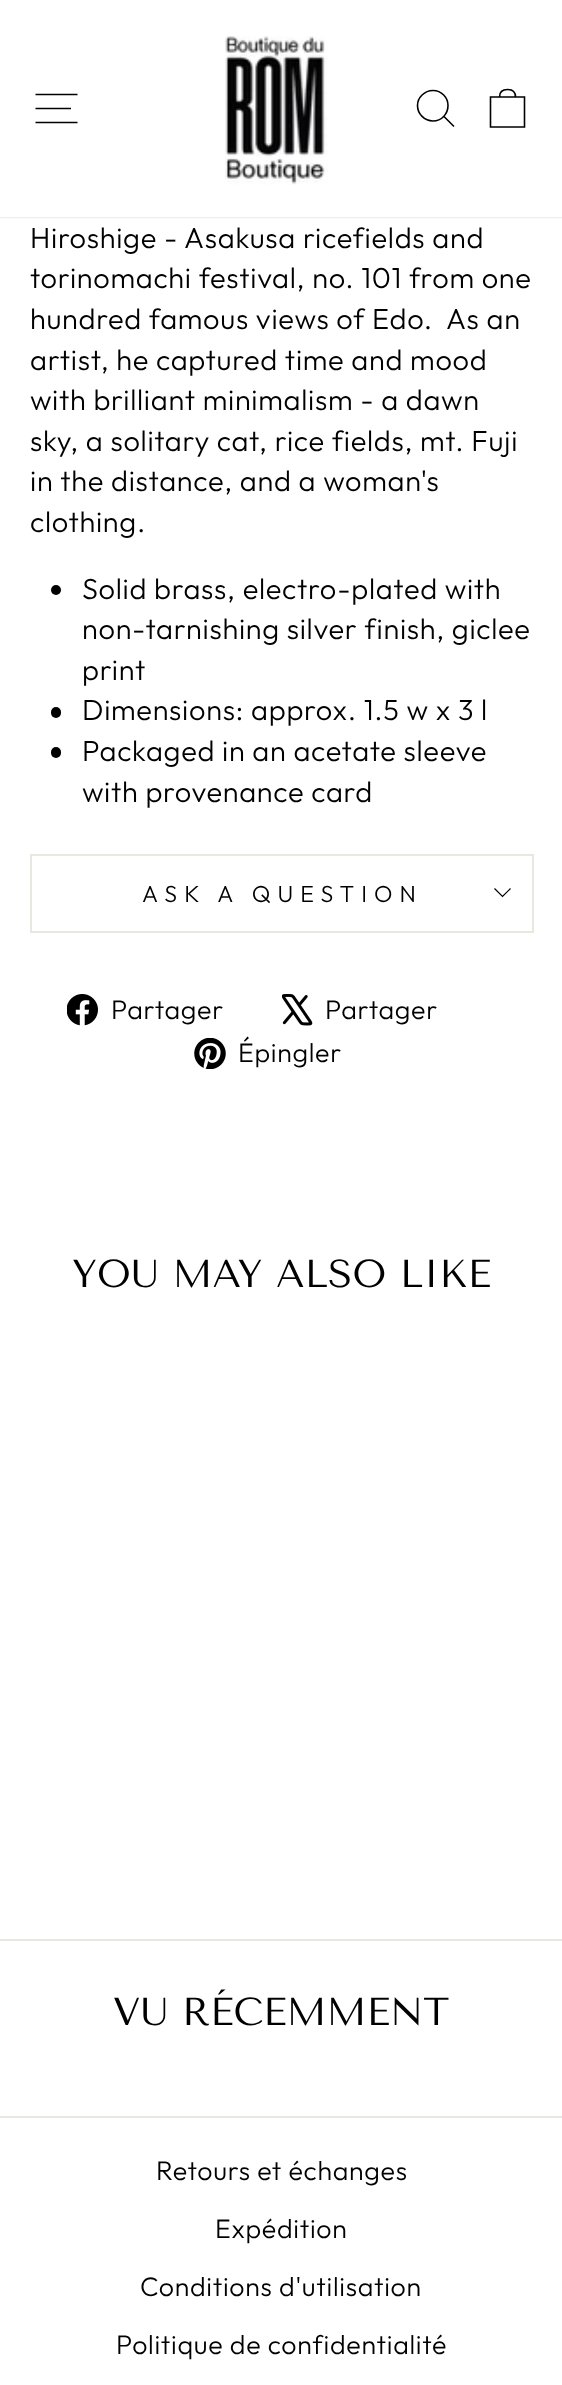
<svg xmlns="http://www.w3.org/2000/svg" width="562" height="2385">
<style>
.a{font:300 29px Outfit;letter-spacing:0.7px;fill:#000}
.b{font:300 23.25px Outfit;letter-spacing:7px;fill:#000}
.c{font:300 26.75px Outfit;letter-spacing:0.7px;fill:#000}
.d{font:39px Tenor Sans;fill:#000}
</style>
<rect width="100%" height="100%" fill="#fff"/>
<path fill="#00000033" filter="blur(1px)" d="M0 0h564v217H0z"/>
<path fill="#fff" d="M0 0h562v217H0z"/>
<path fill="none" stroke="#000" stroke-width="1.6" d="M35.5 94.5h42m-42 14h35.5m-35.5 14h42"/>
<image href="1.png" x="225" y="36" width="103" height="149"/>
<path fill="none" stroke="#000" stroke-width="1.6" d="M448 105.5c0 8.5-6.5 15.5-15 15.5c-8.5 0-15.5-7-15.5-15.5c0-8 7-15 15.5-15c8.5 0 15 7 15 15zm6 21l-10-10"/>
<path fill="none" stroke="#000" stroke-width="1.6" d="M490.5 97h34v30h-34zm9 0c0-6 3.5-7.5 8-7.5c4.5 0 8 1.5 8 7.5"/>
<circle fill="#000" cx="56" cy="590" r="5"/>
<rect fill="#000" x="51" y="707" width="10" height="11" rx="5"/>
<rect fill="#000" x="51" y="747" width="10" height="11" rx="5"/>
<path fill="#e8e8e1" d="M30 931h504v2H30z"/>
<path fill="#e8e8e1" d="M30 854h504v2H30z"/>
<path fill="#e8e8e1" d="M532 854h2v77H532z"/>
<path fill="#e8e8e1" d="M30 854h2v77H30z"/>
<path fill="none" stroke="#000" stroke-width="1.2" d="M494.5 888.5l8 8l8-8"/>
<image href="2.png" x="67" y="994" width="31" height="32"/>
<image href="3.png" x="282" y="994" width="31" height="32"/>
<image href="4.png" x="194" y="1038" width="32" height="31"/>
<path fill="#e8e8e1" d="M0 1939h562v2H0z"/>
<path fill="#e8e8e1" d="M0 2116h562v2H0z"/>
<text class="a" x="30" y="248">Hiroshige - Asakusa ricefields and</text>
<text class="a" x="30" y="288">torinomachi festival, no. 101 from one</text>
<text class="a" xml:space="preserve" x="30" y="329">hundred famous views of Edo.  As an</text>
<text class="a" x="30" y="370">artist, he captured time and mood</text>
<text class="a" x="30" y="410">with brilliant minimalism - a dawn</text>
<text class="a" x="30" y="451">sky, a solitary cat, rice fields, mt. Fuji</text>
<text class="a" x="30" y="491">in the distance, and a woman's</text>
<text class="a" x="30" y="532">clothing.</text>
<text class="a" x="82" y="599">Solid brass, electro-plated with</text>
<text class="a" x="82" y="639">non-tarnishing silver finish, giclee</text>
<text class="a" x="82" y="680">print</text>
<text class="a" x="82" y="720">Dimensions: approx. 1.5 w x 3 l</text>
<text class="a" x="82" y="761">Packaged in an acetate sleeve</text>
<text class="a" x="82" y="802">with provenance card</text>
<text class="b" x="142" y="902">ASK A QUESTION</text>
<text class="c" x="111" y="1019">Partager</text>
<text class="c" x="325" y="1019">Partager</text>
<text class="c" x="238" y="1062">Épingler</text>
<text class="d" x="72" y="1287">YOU MAY ALSO LIKE</text>
<text class="d" x="113" y="2025">VU RÉCEMMENT</text>
<text class="c" x="156" y="2180">Retours et échanges</text>
<text class="c" x="215" y="2238">Expédition</text>
<text class="c" x="140" y="2296">Conditions d'utilisation</text>
<text class="c" x="116" y="2354">Politique de confidentialité</text>
</svg>
